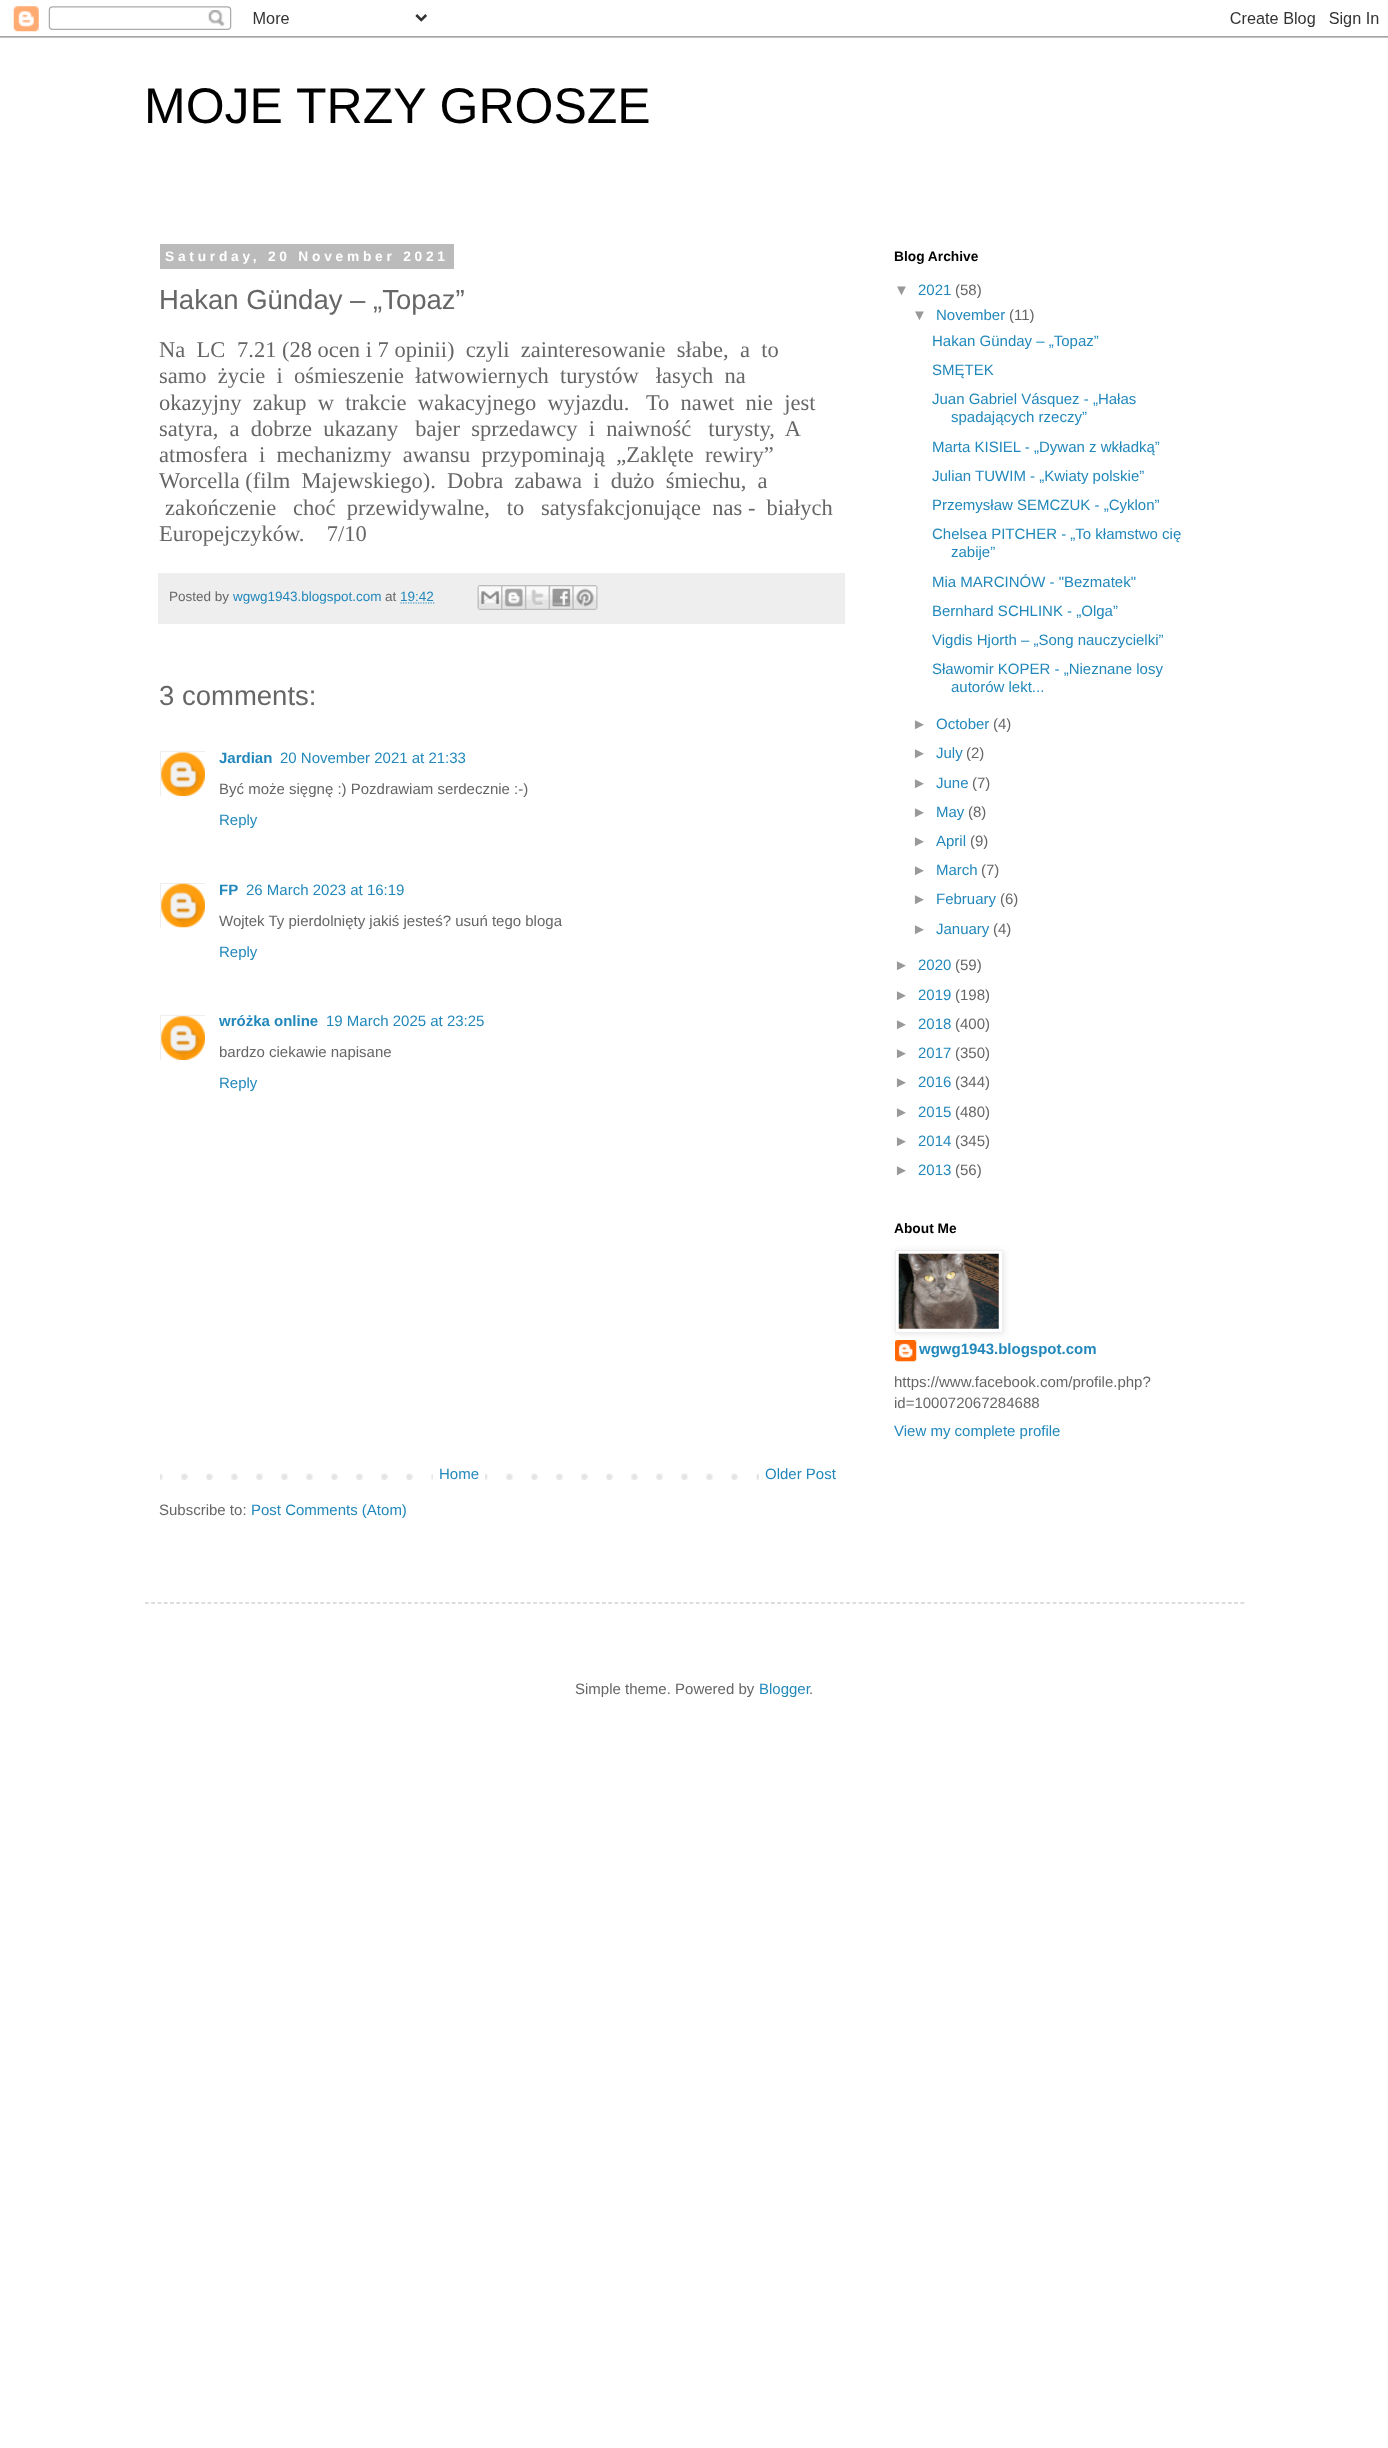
<svg xmlns="http://www.w3.org/2000/svg" width="1388" height="2448">
<style>
.a{font:50px Liberation Sans;fill:#000}
.b{font:bold 13.75px Liberation Sans;letter-spacing:3.75px;fill:#fff}
.c{font:27.5px Liberation Sans;fill:#666}
.d{font:22.5px Liberation Serif;fill:#666}
.e{font:13.5px Liberation Sans;fill:#666}
.f{font:13.5px Liberation Sans;fill:#28b}
.g{font:bold 15px Liberation Sans;fill:#28b}
.h{font:15px Liberation Sans;fill:#28b}
.i{font:15px Liberation Sans;fill:#666}
.j{font:bold 13.75px Liberation Sans;fill:#000}
.k{font:15px Liberation Sans;fill:#999}
</style>
<defs>
<clipPath id="clip1"><path d="M160 751h45v45H160z"/></clipPath>
<clipPath id="clip2"><path d="M160 883h45v45H160z"/></clipPath>
<clipPath id="clip3"><path d="M160 1015h45v45H160z"/></clipPath>
</defs>
<rect width="100%" height="100%" fill="#fff"/>
<image href="1.png" x="0" y="6" width="1388" height="32"/>
<path fill="#bbb" d="M160 244h294v25H160z"/>
<path fill="#eee" d="M158 573h687v51H158z"/>
<path fill="none" stroke="#28b" stroke-width="1.2" stroke-dasharray="1.25 1.25" d="M400.5 603h34"/>
<image href="2.png" x="477" y="585" width="25" height="25"/>
<image href="3.png" x="501" y="585" width="24" height="25"/>
<image href="4.png" x="525" y="585" width="24" height="25"/>
<image href="5.png" x="548" y="585" width="25" height="25"/>
<image href="6.png" x="572" y="585" width="26" height="25"/>
<g clip-path="url(#clip1)">
<path fill="none" stroke="#eee" d="M160.5 751.5h45v46H160.5z"/>
</g>
<image href="7.png" x="161" y="752" width="44" height="45"/>
<g clip-path="url(#clip2)">
<path fill="none" stroke="#eee" d="M160.5 883.5h45v45H160.5z"/>
</g>
<image href="8.png" x="161" y="883" width="44" height="45"/>
<g clip-path="url(#clip3)">
<path fill="none" stroke="#eee" d="M160.5 1015.5h45v45H160.5z"/>
</g>
<image href="9.png" x="161" y="1016" width="44" height="44"/>
<image href="10.png" x="160" y="1473" width="599" height="7"/>
<path fill="#fff" d="M433 1473h52v7H433z"/>
<image href="12.png" x="895" y="1340" width="22" height="22"/>
<path fill="#0000001a" filter="blur(3px)" d="M896 1251h108v83H896z"/>
<path fill="#fff" stroke="#eee" d="M895.5 1250.5h107v82H895.5z"/>
<image href="11.png" x="898" y="1253" width="101" height="76"/>
<path fill="none" stroke="#bbb" stroke-width="1.2" stroke-dasharray="3.75 2.51" d="M145 1603h1100"/>
<text class="a" x="144" y="123">MOJE</text>
<text class="a" x="296" y="123">TRZY GROSZE</text>
<text class="b" x="165" y="261">Saturday, 20 November 2021</text>
<text class="c" x="159" y="309">Hakan Günday – „Topaz”</text>
<text class="d" xml:space="preserve" x="159" y="357">Na  LC</text>
<text class="d" xml:space="preserve" x="237" y="357">7.21 (28 ocen i 7 opinii)  czyli  zainteresowanie  słabe,  a  to</text>
<text class="d" xml:space="preserve" x="159" y="383">samo  życie  i  ośmieszenie  łatwowiernych  turystów   łasych  na</text>
<text class="d" xml:space="preserve" x="159" y="410">okazyjny  zakup  w  trakcie  wakacyjnego  wyjazdu.   To  nawet  nie  jest</text>
<text class="d" xml:space="preserve" x="159" y="436">satyra,  a  dobrze  ukazany   bajer  sprzedawcy  i  naiwność   turysty,  A</text>
<text class="d" xml:space="preserve" x="159" y="462">atmosfera  i  mechanizmy  awansu  przypominają  „Zaklęte  rewiry”</text>
<text class="d" xml:space="preserve" x="159" y="488">Worcella (film  Majewskiego).  Dobra  zabawa  i  dużo  śmiechu,  a</text>
<text class="d" xml:space="preserve" x="165" y="515">zakończenie   choć  przewidywalne,   to   satysfakcjonujące  nas -  białych</text>
<text class="d" xml:space="preserve" x="159" y="541">Europejczyków.    7/10</text>
<text class="e" x="169" y="601">Posted by</text>
<text class="f" x="233" y="601">wgwg1943.blogspot.com</text>
<text class="e" x="385" y="601">at</text>
<text class="f" x="400" y="601">19:42</text>
<text class="c" x="159" y="705">3 comments:</text>
<text class="g" x="219" y="763">Jardian</text>
<text class="h" x="280" y="763">20 November 2021 at 21:33</text>
<text class="i" x="219" y="794">Być może sięgnę :) Pozdrawiam serdecznie :-)</text>
<text class="h" x="219" y="825">Reply</text>
<text class="g" x="219" y="895">FP</text>
<text class="h" x="246" y="895">26 March 2023 at 16:19</text>
<text class="i" x="219" y="926">Wojtek Ty pierdolnięty jakiś jesteś? usuń tego bloga</text>
<text class="h" x="219" y="957">Reply</text>
<text class="g" x="219" y="1026">wróżka online</text>
<text class="h" x="326" y="1026">19 March 2025 at 23:25</text>
<text class="i" x="219" y="1057">bardzo ciekawie napisane</text>
<text class="h" x="219" y="1088">Reply</text>
<text class="h" x="439" y="1479">Home</text>
<text class="h" x="765" y="1479">Older Post</text>
<text class="i" x="159" y="1515">Subscribe to:</text>
<text class="h" x="251" y="1515">Post Comments (Atom)</text>
<text class="j" x="894" y="261">Blog Archive</text>
<text class="k" x="894" y="295">▼</text>
<text class="h" x="918" y="295">2021</text>
<text class="i" x="955" y="295">(58)</text>
<text class="k" x="912" y="320">▼</text>
<text class="h" x="936" y="320">November</text>
<text class="i" x="1009" y="320">(11)</text>
<text class="h" x="932" y="346">Hakan Günday – „Topaz”</text>
<text class="h" x="932" y="375">SMĘTEK</text>
<text class="h" x="932" y="404">Juan Gabriel Vásquez - „Hałas</text>
<text class="h" x="951" y="422">spadających rzeczy”</text>
<text class="h" x="932" y="452">Marta KISIEL - „Dywan z wkładką”</text>
<text class="h" x="932" y="481">Julian TUWIM - „Kwiaty polskie”</text>
<text class="h" x="932" y="510">Przemysław SEMCZUK - „Cyklon”</text>
<text class="h" x="932" y="539">Chelsea PITCHER - „To kłamstwo cię</text>
<text class="h" x="951" y="557">zabije”</text>
<text class="h" x="932" y="587">Mia MARCINÓW - "Bezmatek"</text>
<text class="h" x="932" y="616">Bernhard SCHLINK - „Olga”</text>
<text class="h" x="932" y="645">Vigdis Hjorth – „Song nauczycielki”</text>
<text class="h" x="932" y="674">Sławomir KOPER - „Nieznane losy</text>
<text class="h" x="951" y="692">autorów lekt...</text>
<text class="k" x="912" y="729">►</text>
<text class="h" x="936" y="729">October</text>
<text class="i" x="993" y="729">(4)</text>
<text class="k" x="912" y="758">►</text>
<text class="h" x="936" y="758">July</text>
<text class="i" x="966" y="758">(2)</text>
<text class="k" x="912" y="788">►</text>
<text class="h" x="936" y="788">June</text>
<text class="i" x="972" y="788">(7)</text>
<text class="k" x="912" y="817">►</text>
<text class="h" x="936" y="817">May</text>
<text class="i" x="968" y="817">(8)</text>
<text class="k" x="912" y="846">►</text>
<text class="h" x="936" y="846">April</text>
<text class="i" x="970" y="846">(9)</text>
<text class="k" x="912" y="875">►</text>
<text class="h" x="936" y="875">March</text>
<text class="i" x="981" y="875">(7)</text>
<text class="k" x="912" y="904">►</text>
<text class="h" x="936" y="904">February</text>
<text class="i" x="1000" y="904">(6)</text>
<text class="k" x="912" y="934">►</text>
<text class="h" x="936" y="934">January</text>
<text class="i" x="993" y="934">(4)</text>
<text class="k" x="894" y="970">►</text>
<text class="h" x="918" y="970">2020</text>
<text class="i" x="955" y="970">(59)</text>
<text class="k" x="894" y="1000">►</text>
<text class="h" x="918" y="1000">2019</text>
<text class="i" x="955" y="1000">(198)</text>
<text class="k" x="894" y="1029">►</text>
<text class="h" x="918" y="1029">2018</text>
<text class="i" x="955" y="1029">(400)</text>
<text class="k" x="894" y="1058">►</text>
<text class="h" x="918" y="1058">2017</text>
<text class="i" x="955" y="1058">(350)</text>
<text class="k" x="894" y="1087">►</text>
<text class="h" x="918" y="1087">2016</text>
<text class="i" x="955" y="1087">(344)</text>
<text class="k" x="894" y="1117">►</text>
<text class="h" x="918" y="1117">2015</text>
<text class="i" x="955" y="1117">(480)</text>
<text class="k" x="894" y="1146">►</text>
<text class="h" x="918" y="1146">2014</text>
<text class="i" x="955" y="1146">(345)</text>
<text class="k" x="894" y="1175">►</text>
<text class="h" x="918" y="1175">2013</text>
<text class="i" x="955" y="1175">(56)</text>
<text class="j" x="894" y="1233">About Me</text>
<text class="g" x="919" y="1354">wgwg1943.blogspot.com</text>
<text class="i" x="894" y="1387">https://www.facebook.com/profile.php?</text>
<text class="i" x="894" y="1408">id=100072067284688</text>
<text class="h" x="894" y="1436">View my complete profile</text>
<text class="i" x="575" y="1694">Simple theme. Powered by</text>
<text class="h" x="759" y="1694">Blogger</text>
<text class="i" x="809" y="1694">.</text>
</svg>
